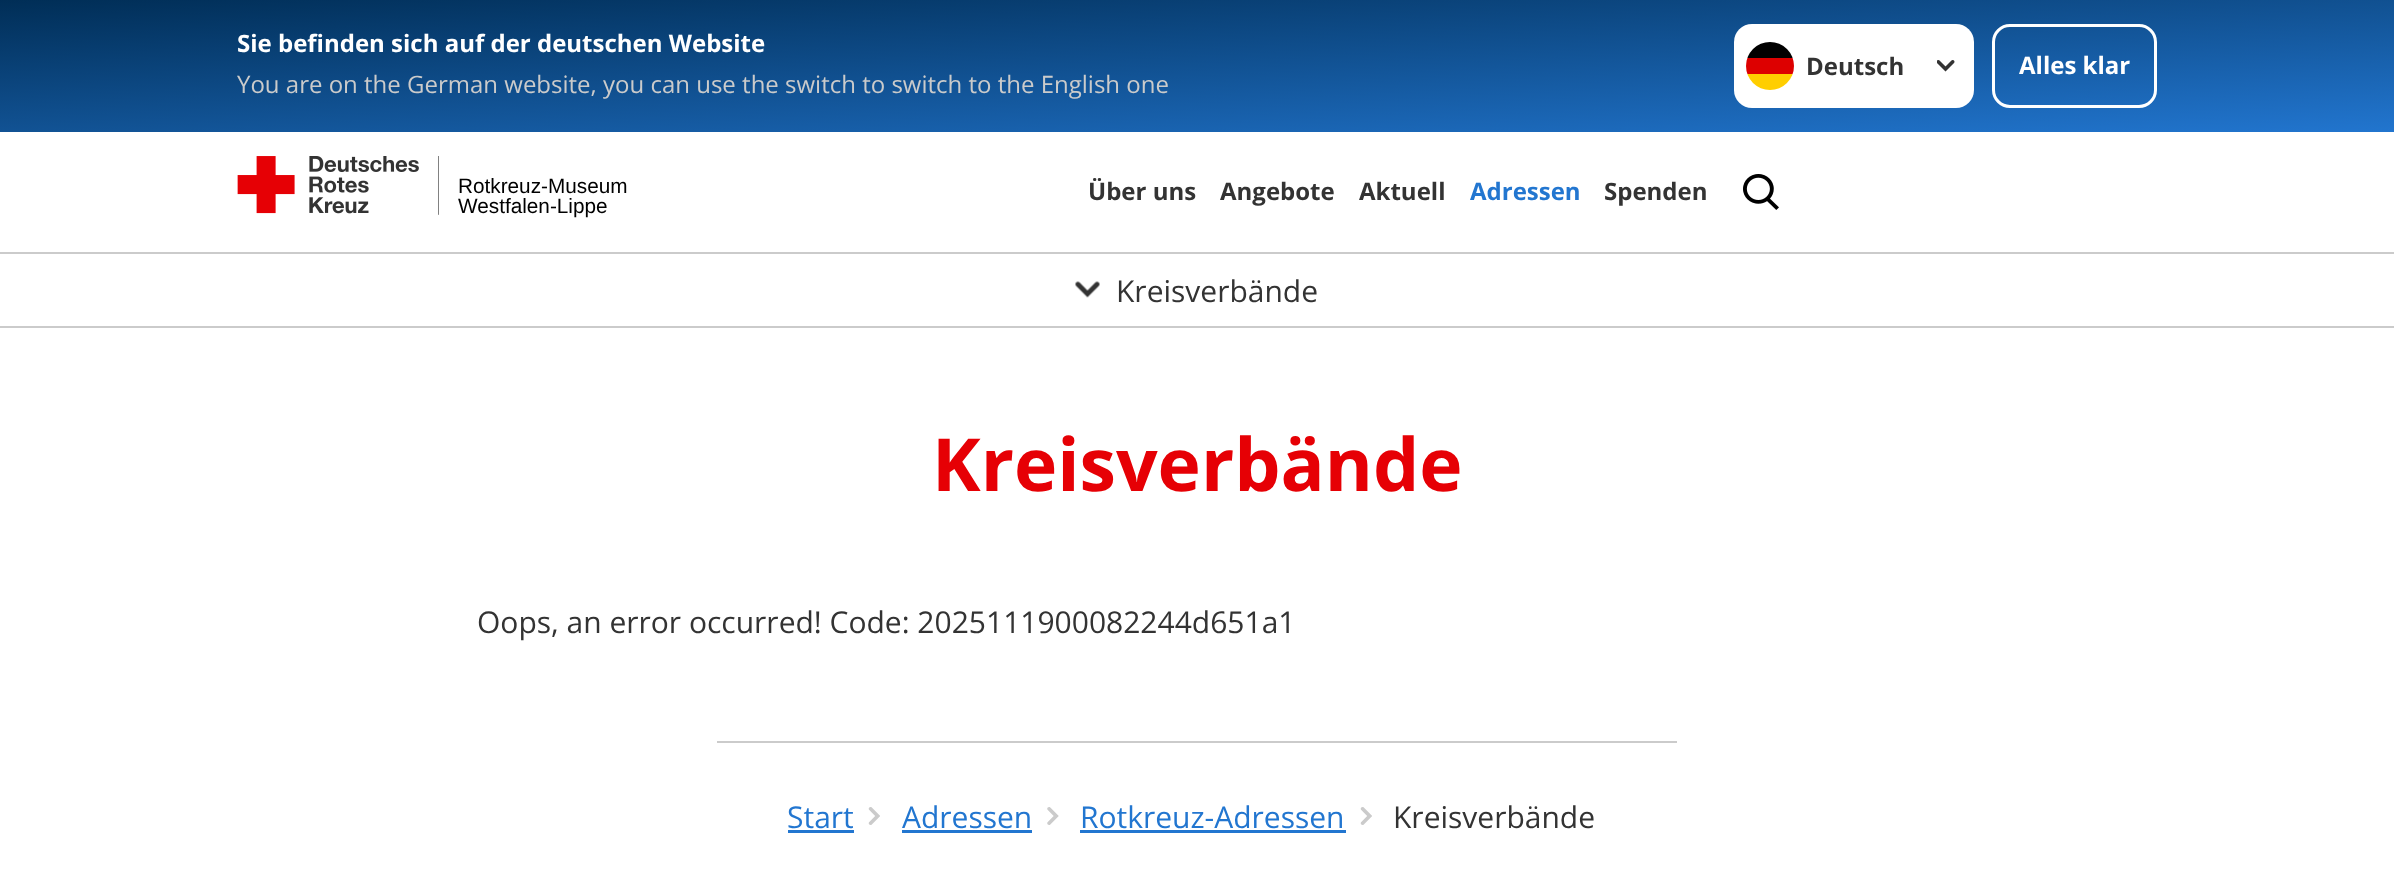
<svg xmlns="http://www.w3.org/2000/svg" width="2394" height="876">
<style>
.a{font:bold 24px Open Sans;fill:#fff}
.b{font:24px Open Sans;fill:#cbcbcb}
.c{font:bold 24px Open Sans;fill:#333}
.d{font:20.75px Liberation Sans;fill:#000}
.e{font:bold 24px Open Sans;fill:#2276d0}
.f{font:30px Open Sans;fill:#333}
.g{font:bold 73.25px Open Sans;fill:#e60005}
.h{font:30px Open Sans;fill:#2276d0}
</style>
<defs>
<linearGradient id="g1" gradientUnits="userSpaceOnUse" x1="1190" y1="-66" x2="1204" y2="198"><stop offset="0" stop-color="#002d55"/><stop offset="1" stop-color="#2276d0"/></linearGradient>
<clipPath id="clip1"><rect x="1746" y="42" width="48" height="48" rx="24"/></clipPath>
</defs>
<rect width="100%" height="100%" fill="#fff"/>
<path fill="url(#g1)" d="M0 0h2394v132H0z"/>
<rect fill="#fff" x="1734" y="24" width="240" height="84" rx="18"/>
<g clip-path="url(#clip1)">
<path fill="#ffce00" d="M1747 74h46v16H1747z"/>
<path fill="#000" d="M1747 42h46v16H1747z"/>
<path fill="#d00" d="M1746 58h48v16H1746z"/>
</g>
<image href="1.png" x="1937" y="60" width="18" height="12"/>
<rect fill="none" stroke="#fff" stroke-width="3" x="1993.5" y="25.5" width="162" height="81" rx="16.5"/>
<path fill="#cbcbcb" d="M0 252h2394v2H0z"/>
<image href="2.png" x="237" y="156" width="202" height="59"/>
<image href="3.png" x="1743" y="174" width="36" height="36"/>
<path fill="#cbcbcb" d="M0 326h2394v2H0z"/>
<image href="4.png" x="1075" y="281" width="25" height="17"/>
<path fill="#cbcbcb" d="M717 741h960v2H717z"/>
<path fill="#2276d0" d="M788 830h66v3H788z"/>
<image href="5.png" x="868" y="807" width="12" height="18"/>
<path fill="#2276d0" d="M902 830h130v3H902z"/>
<image href="6.png" x="1047" y="807" width="12" height="18"/>
<path fill="#2276d0" d="M1080 830h266v3H1080z"/>
<image href="5.png" x="1360" y="807" width="12" height="18"/>
<text class="a" x="237" y="52">Sie befinden sich auf der deutschen Website</text>
<text class="b" x="237" y="93">You are on the German website, you can use the switch to switch to the English one</text>
<text class="c" x="1806" y="75">Deutsch</text>
<text class="a" x="2019" y="74">Alles klar</text>
<text class="d" x="458" y="193">Rotkreuz-Museum</text>
<text class="d" x="458" y="213">Westfalen-Lippe</text>
<text class="c" x="1088" y="200">Über uns</text>
<text class="c" x="1220" y="200">Angebote</text>
<text class="c" x="1359" y="200">Aktuell</text>
<text class="e" x="1470" y="200">Adressen</text>
<text class="c" x="1604" y="200">Spenden</text>
<text class="f" x="1116" y="302">Kreisverbände</text>
<text class="g" x="932" y="491">Kreisverbände</text>
<text class="f" x="477" y="633">Oops, an error occurred! Code: 2025111900082244d651a1</text>
<text class="h" x="787" y="828">Start</text>
<text class="h" x="902" y="828">Adressen</text>
<text class="h" x="1080" y="828">Rotkreuz-Adressen</text>
<text class="f" x="1393" y="828">Kreisverbände</text>
</svg>
